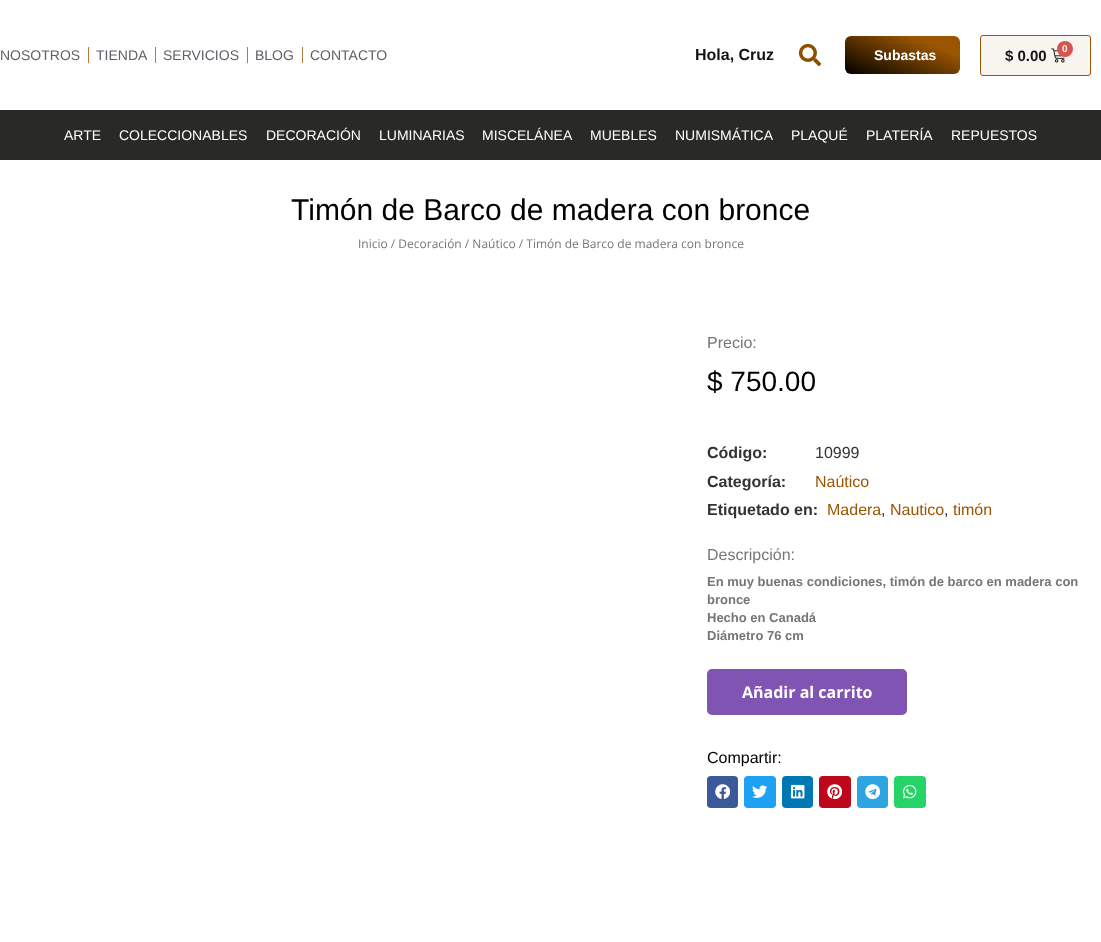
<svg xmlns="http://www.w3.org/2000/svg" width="1101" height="942">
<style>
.a{font:14px Liberation Sans;fill:#5f6068}
.b{font:bold 16px Liberation Sans;fill:#141414}
.c{font:bold 14px Liberation Sans;fill:#fff}
.d{font:bold 15px Liberation Sans;fill:#141414}
.e{font:bold 10px Liberation Sans;fill:#fff}
.f{font:14px Liberation Sans;fill:#fff}
.g{font:30px Liberation Sans;fill:#000}
.h{font:12px Open Sans;fill:#767676}
.i{font:16px Liberation Sans;fill:#767676}
.j{font:28px Liberation Sans;fill:#000}
.k{font:bold 16px Liberation Sans;fill:#333}
.l{font:16px Liberation Sans;fill:#333}
.m{font:16px Liberation Sans;fill:#9b5500}
.n{font:bold 13px Liberation Sans;fill:#767676}
.o{font:bold 16px Open Sans;fill:#fff}
.p{font:16px Liberation Sans;fill:#000}
</style>
<defs>
<linearGradient id="g1" gradientUnits="userSpaceOnUse" x1="917" y1="19" x2="888" y2="91"><stop offset="0.24" stop-color="#9b5500"/><stop offset="1" stop-color="#000"/></linearGradient>
</defs>
<rect width="100%" height="100%" fill="#fff"/>
<path fill="#b07940" d="M88 47h1v16H88z"/>
<path fill="#b07940" d="M155 47h1v16H155z"/>
<path fill="#b07940" d="M247 47h1v16H247z"/>
<path fill="#b07940" d="M302 47h1v16H302z"/>
<image href="1.png" x="799" y="44" width="22" height="22"/>
<rect fill="url(#g1)" x="845" y="36" width="115" height="38" rx="6"/>
<rect fill="#f8f5f1" stroke="#9b5500" x="980.5" y="35.5" width="110" height="40" rx="2.5"/>
<image href="2.png" x="1051" y="48" width="14" height="15"/>
<circle fill="#d9534f" cx="1065" cy="49" r="8"/>
<path fill="#292927" d="M0 110h1101v50H0z"/>
<rect fill="#7f54b3" x="707" y="669" width="200" height="46" rx="5"/>
<rect fill="#3b5998" x="707" y="776" width="31" height="32" rx="4"/>
<image href="3.png" x="715" y="784" width="15" height="15"/>
<rect fill="#1da1f2" x="744" y="776" width="32" height="32" rx="4"/>
<image href="4.png" x="752" y="785" width="15" height="13"/>
<rect fill="#0077b5" x="782" y="776" width="31" height="32" rx="4"/>
<image href="5.png" x="790" y="784" width="15" height="15"/>
<rect fill="#bd081c" x="819" y="776" width="32" height="32" rx="4"/>
<image href="6.png" x="827" y="784" width="15" height="15"/>
<rect fill="#2ca5e0" x="857" y="776" width="31" height="32" rx="4"/>
<image href="7.png" x="865" y="784" width="15" height="15"/>
<rect fill="#25d366" x="894" y="776" width="32" height="32" rx="4"/>
<image href="8.png" x="903" y="785" width="14" height="14"/>
<text class="a" x="0" y="60">NOSOTROS</text>
<text class="a" x="96" y="60">TIENDA</text>
<text class="a" x="163" y="60">SERVICIOS</text>
<text class="a" x="255" y="60">BLOG</text>
<text class="a" x="310" y="60">CONTACTO</text>
<text class="b" x="695" y="60">Hola, Cruz</text>
<text class="c" x="874" y="60">Subastas</text>
<text class="d" x="1005" y="61">$ 0.00</text>
<text class="e" x="1062" y="52">0</text>
<text class="f" x="64" y="140">ARTE</text>
<text class="f" x="119" y="140">COLECCIONABLES</text>
<text class="f" x="266" y="140">DECORACIÓN</text>
<text class="f" x="379" y="140">LUMINARIAS</text>
<text class="f" x="482" y="140">MISCELÁNEA</text>
<text class="f" x="590" y="140">MUEBLES</text>
<text class="f" x="675" y="140">NUMISMÁTICA</text>
<text class="f" x="791" y="140">PLAQUÉ</text>
<text class="f" x="866" y="140">PLATERÍA</text>
<text class="f" x="951" y="140">REPUESTOS</text>
<text class="g" x="291" y="220">Timón de Barco de madera con bronce</text>
<text class="h" x="358" y="248">Inicio / Decoración / Naútico / Timón de Barco de madera con bronce</text>
<text class="i" x="707" y="348">Precio:</text>
<text class="j" x="707" y="391">$ 750.00</text>
<text class="k" x="707" y="458">Código:</text>
<text class="l" x="815" y="458">10999</text>
<text class="k" x="707" y="487">Categoría:</text>
<text class="m" x="815" y="487">Naútico</text>
<text class="k" x="707" y="515">Etiquetado en:</text>
<text class="m" x="827" y="515">Madera</text>
<text class="l" x="881" y="515">,</text>
<text class="m" x="890" y="515">Nautico</text>
<text class="l" x="944" y="515">,</text>
<text class="m" x="953" y="515">timón</text>
<text class="i" x="707" y="560">Descripción:</text>
<text class="n" x="707" y="586">En muy buenas condiciones, timón de barco en madera con</text>
<text class="n" x="707" y="604">bronce</text>
<text class="n" x="707" y="622">Hecho en Canadá</text>
<text class="n" x="707" y="640">Diámetro 76 cm</text>
<text class="o" x="742" y="698">Añadir al carrito</text>
<text class="p" x="707" y="763">Compartir:</text>
</svg>
